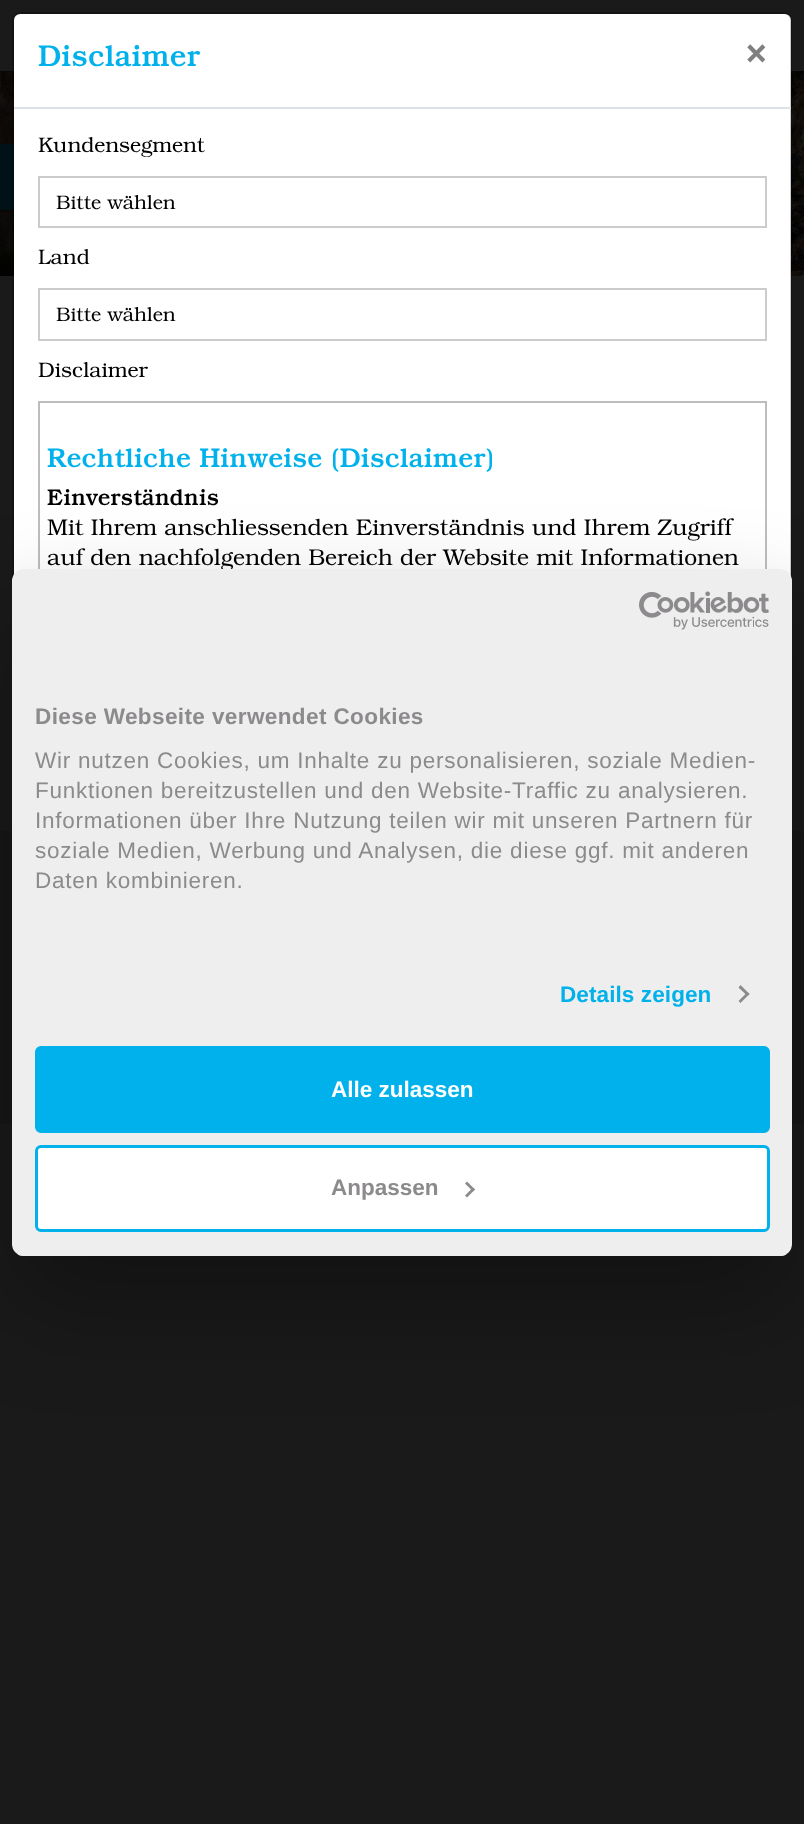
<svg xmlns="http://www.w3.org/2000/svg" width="804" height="1824">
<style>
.a{font:500 30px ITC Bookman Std;fill:#00b1eb}
.b{font:bold 36px ITC Bookman Std;fill:#808080}
.c{font:300 21px ITC Bookman Std;fill:#000}
.d{font:300 19.5px ITC Bookman Std;fill:#000}
.e{font:500 27px ITC Bookman Std;fill:#00b1eb}
.f{font:500 22.8px ITC Bookman Std;fill:#000}
.g{font:300 22.8px ITC Bookman Std;fill:#000}
.h{font:bold 22.5px Liberation Sans;letter-spacing:0.4px;fill:#8c8a8c}
.i{font:22.5px Liberation Sans;letter-spacing:0.75px;fill:#8c8a8c}
.j{font:bold 22.5px Liberation Sans;letter-spacing:0.1px;fill:#00b1eb}
.k{font:bold 22.5px Liberation Sans;fill:#fff}
.l{font:bold 22.5px Liberation Sans;fill:#8c8a8c}
</style>
<defs>
<clipPath id="clip1"><rect x="12" y="569" width="780" height="687" rx="12"/></clipPath>
</defs>
<rect width="100%" height="100%" fill="#1a1a1a"/>
<image href="1.png" x="0" y="71" width="804" height="205"/>
<path fill="#171717" d="M0 831h804v293H0z"/>
<rect fill="#fff" x="14" y="14" width="777" height="891" rx="6"/>
<path fill="#001218" d="M0 144h14v66H0z"/>
<rect fill="none" stroke="#00000033" stroke-width="2" x="13" y="13" width="778" height="892" rx="7"/>
<path fill="#dee2e6" d="M14 107h777v2H14z"/>
<path fill="none" stroke="#ccc" stroke-width="2" d="M39 177h727v50H39z"/>
<path fill="none" stroke="#ccc" stroke-width="2" d="M39 289h727v51H39z"/>
<path fill="none" stroke="#bdbdbd" stroke-width="2" d="M39 402h727v373H39z"/>
<rect fill="#0000004d" filter="blur(51px)" x="12" y="617" width="780" height="687" rx="12"/>
<text class="a" x="38" y="66">Disclaimer</text>
<text class="b" x="745" y="63">×</text>
<text class="c" x="38" y="152">Kundensegment</text>
<text class="d" x="56" y="209">Bitte wählen</text>
<text class="c" x="38" y="264">Land</text>
<text class="d" x="56" y="321">Bitte wählen</text>
<text class="c" x="38" y="377">Disclaimer</text>
<text class="e" x="47" y="467">Rechtliche Hinweise (Disclaimer)</text>
<text class="f" x="47" y="505">Einverständnis</text>
<text class="g" x="47" y="535">Mit Ihrem anschliessenden Einverständnis und Ihrem Zugriff</text>
<text class="g" x="47" y="565">auf den nachfolgenden Bereich der Website mit Informationen</text>
<rect fill="#eee" x="12" y="569" width="780" height="687" rx="12"/>
<image href="2.png" x="639" y="591" width="130" height="39"/>
<text class="h" x="35" y="724">Diese Webseite verwendet Cookies</text>
<text class="i" x="35" y="768">Wir nutzen Cookies, um Inhalte zu personalisieren, soziale Medien-</text>
<text class="i" x="35" y="798">Funktionen bereitzustellen und den Website-Traffic zu analysieren.</text>
<text class="i" x="35" y="828">Informationen über Ihre Nutzung teilen wir mit unseren Partnern für</text>
<text class="i" x="35" y="858">soziale Medien, Werbung und Analysen, die diese ggf. mit anderen</text>
<text class="i" x="35" y="888">Daten kombinieren.</text>
<text class="j" x="560" y="1002">Details zeigen</text>
<path fill="#8c8a8c" d="M740.5 985l9 9l-2 2l-9-8.5z"/>
<path fill="#8c8a8c" d="M747.5 992l2 2l-9 9l-2-2z"/>
<g clip-path="url(#clip1)">
<path fill="#eee" d="M12 1254h780v2H12z"/>
</g>
<rect fill="#00b1eb" stroke="#00b1eb" stroke-width="3" x="36.5" y="1047.5" width="732" height="84" rx="4.5"/>
<text class="k" x="331" y="1097">Alle zulassen</text>
<rect fill="#fff" stroke="#00b1eb" stroke-width="3" x="36.5" y="1146.5" width="732" height="84" rx="4.5"/>
<text class="l" x="331" y="1195">Anpassen</text>
<path fill="#8c8a8c" d="M467 1181.5l8 8l-2 2l-8-8z"/>
<path fill="#8c8a8c" d="M473 1187.5l2 2l-8 8l-2-2z"/>
</svg>
